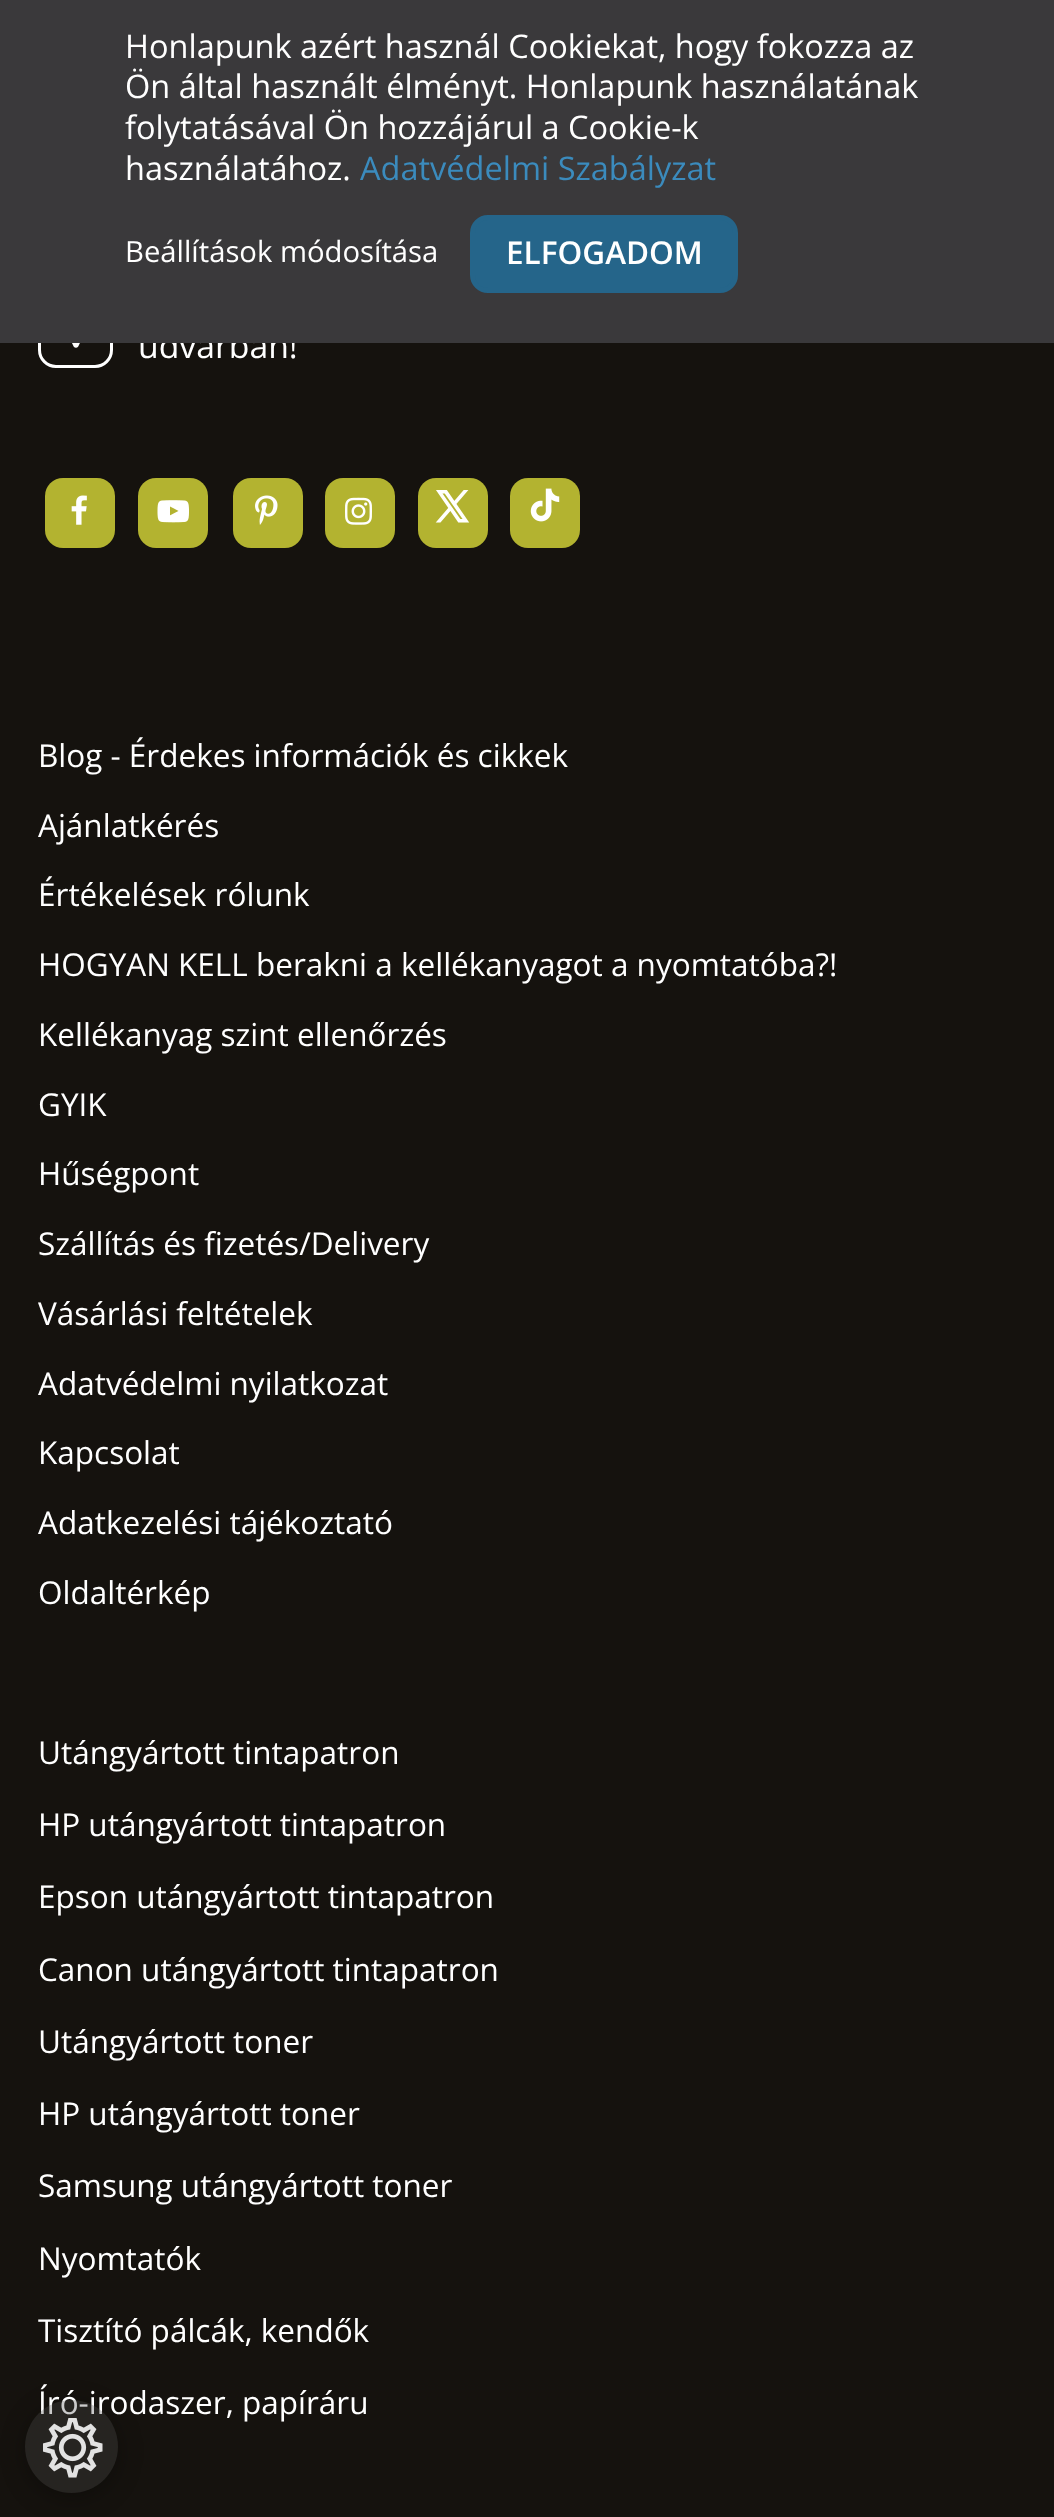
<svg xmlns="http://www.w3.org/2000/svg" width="1054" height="2517">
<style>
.a{font:33.75px Open Sans;fill:#fff}
.b{font:600 31.5px Open Sans;fill:#fff}
.c{font:29.25px Open Sans;fill:#fff}
.d{font:32.5px Open Sans;fill:#3b8bbd}
.e{font:32.5px Open Sans;fill:#fff}
.f{font:31.5px Open Sans;fill:#fff}
</style>
<defs>
<clipPath id="clip1"><path d="M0 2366h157v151h-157zm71.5 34c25.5 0 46.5 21 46.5 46.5c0 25.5-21 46.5-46.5 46.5c-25.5 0-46.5-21-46.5-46.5c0-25.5 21-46.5 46.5-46.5z" clip-rule="evenodd"/></clipPath>
<clipPath id="clip2"><path d="M38 1683h980v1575H38z"/></clipPath>
</defs>
<rect width="100%" height="100%" fill="#15120e"/>
<rect fill="none" stroke="#fff" stroke-width="3" x="39.5" y="294.5" width="72" height="72" rx="16.5"/>
<image href="1.png" x="72" y="343" width="8" height="5"/>
<rect fill="#b3b330" x="45" y="478" width="70" height="70" rx="18"/>
<image href="2.png" x="71" y="495" width="16" height="30"/>
<rect fill="#b3b330" x="138" y="478" width="70" height="70" rx="18"/>
<image href="3.png" x="157" y="500" width="32" height="23"/>
<rect fill="#b3b330" x="233" y="478" width="70" height="70" rx="18"/>
<image href="4.png" x="255" y="495" width="23" height="30"/>
<rect fill="#b3b330" x="325" y="478" width="70" height="70" rx="18"/>
<image href="5.png" x="345" y="497" width="27" height="28"/>
<rect fill="#b3b330" x="418" y="478" width="70" height="70" rx="18"/>
<image href="6.png" x="435" y="490" width="35" height="33"/>
<rect fill="#b3b330" x="510" y="478" width="70" height="70" rx="18"/>
<image href="7.png" x="530" y="488" width="30" height="34"/>
<g clip-path="url(#clip1)">
<rect fill="#0000004d" filter="blur(12.5px)" x="25" y="2405" width="93" height="93" rx="46.5"/>
</g>
<text class="a" x="138" y="358">udvarban!</text>
<path fill="#3a393b" d="M0 0h1054v343H0z"/>
<rect fill="#25658a" stroke="#25658a" stroke-width="5" x="472.5" y="217.5" width="263" height="73" rx="15.5"/>
<text class="b" x="506" y="264">ELFOGADOM</text>
<text class="c" x="125" y="262">Beállítások módosítása</text>
<text class="d" x="360" y="180">Adatvédelmi Szabályzat</text>
<text class="e" x="125" y="180">használatához.</text>
<text class="e" x="125" y="139">folytatásával Ön hozzájárul a Cookie-k</text>
<text class="e" x="125" y="98">Ön által használt élményt. Honlapunk használatának</text>
<text class="e" x="125" y="58">Honlapunk azért használ Cookiekat, hogy fokozza az</text>
<text class="f" x="38" y="767">Blog - Érdekes információk és cikkek</text>
<text class="f" x="38" y="837">Ajánlatkérés</text>
<text class="f" x="38" y="906">Értékelések rólunk</text>
<text class="f" x="38" y="976">HOGYAN KELL berakni a kellékanyagot a nyomtatóba?!</text>
<text class="f" x="38" y="1046">Kellékanyag szint ellenőrzés</text>
<text class="f" x="38" y="1116">GYIK</text>
<text class="f" x="38" y="1185">Hűségpont</text>
<text class="f" x="38" y="1255">Szállítás és fizetés/Delivery</text>
<text class="f" x="38" y="1325">Vásárlási feltételek</text>
<text class="f" x="38" y="1395">Adatvédelmi nyilatkozat</text>
<text class="f" x="38" y="1464">Kapcsolat</text>
<text class="f" x="38" y="1534">Adatkezelési tájékoztató</text>
<text class="f" x="38" y="1604">Oldaltérkép</text>
<text class="f" x="38" y="1764">Utángyártott tintapatron</text>
<text class="f" x="38" y="1836">HP utángyártott tintapatron</text>
<text class="f" x="38" y="1908">Epson utángyártott tintapatron</text>
<text class="f" x="38" y="1981">Canon utángyártott tintapatron</text>
<text class="f" x="38" y="2053">Utángyártott toner</text>
<text class="f" x="38" y="2125">HP utángyártott toner</text>
<text class="f" x="38" y="2197">Samsung utángyártott toner</text>
<text class="f" x="38" y="2270">Nyomtatók</text>
<g clip-path="url(#clip2)">
<text class="f" x="38" y="2342">Tisztító pálcák, kendők</text>
</g>
<text class="f" x="38" y="2414">Író-irodaszer, papíráru</text>
<circle fill="#4e4e4e4d" cx="71.5" cy="2446.5" r="46.5"/>
<image href="8.png" x="43" y="2418" width="60" height="60"/>
</svg>
